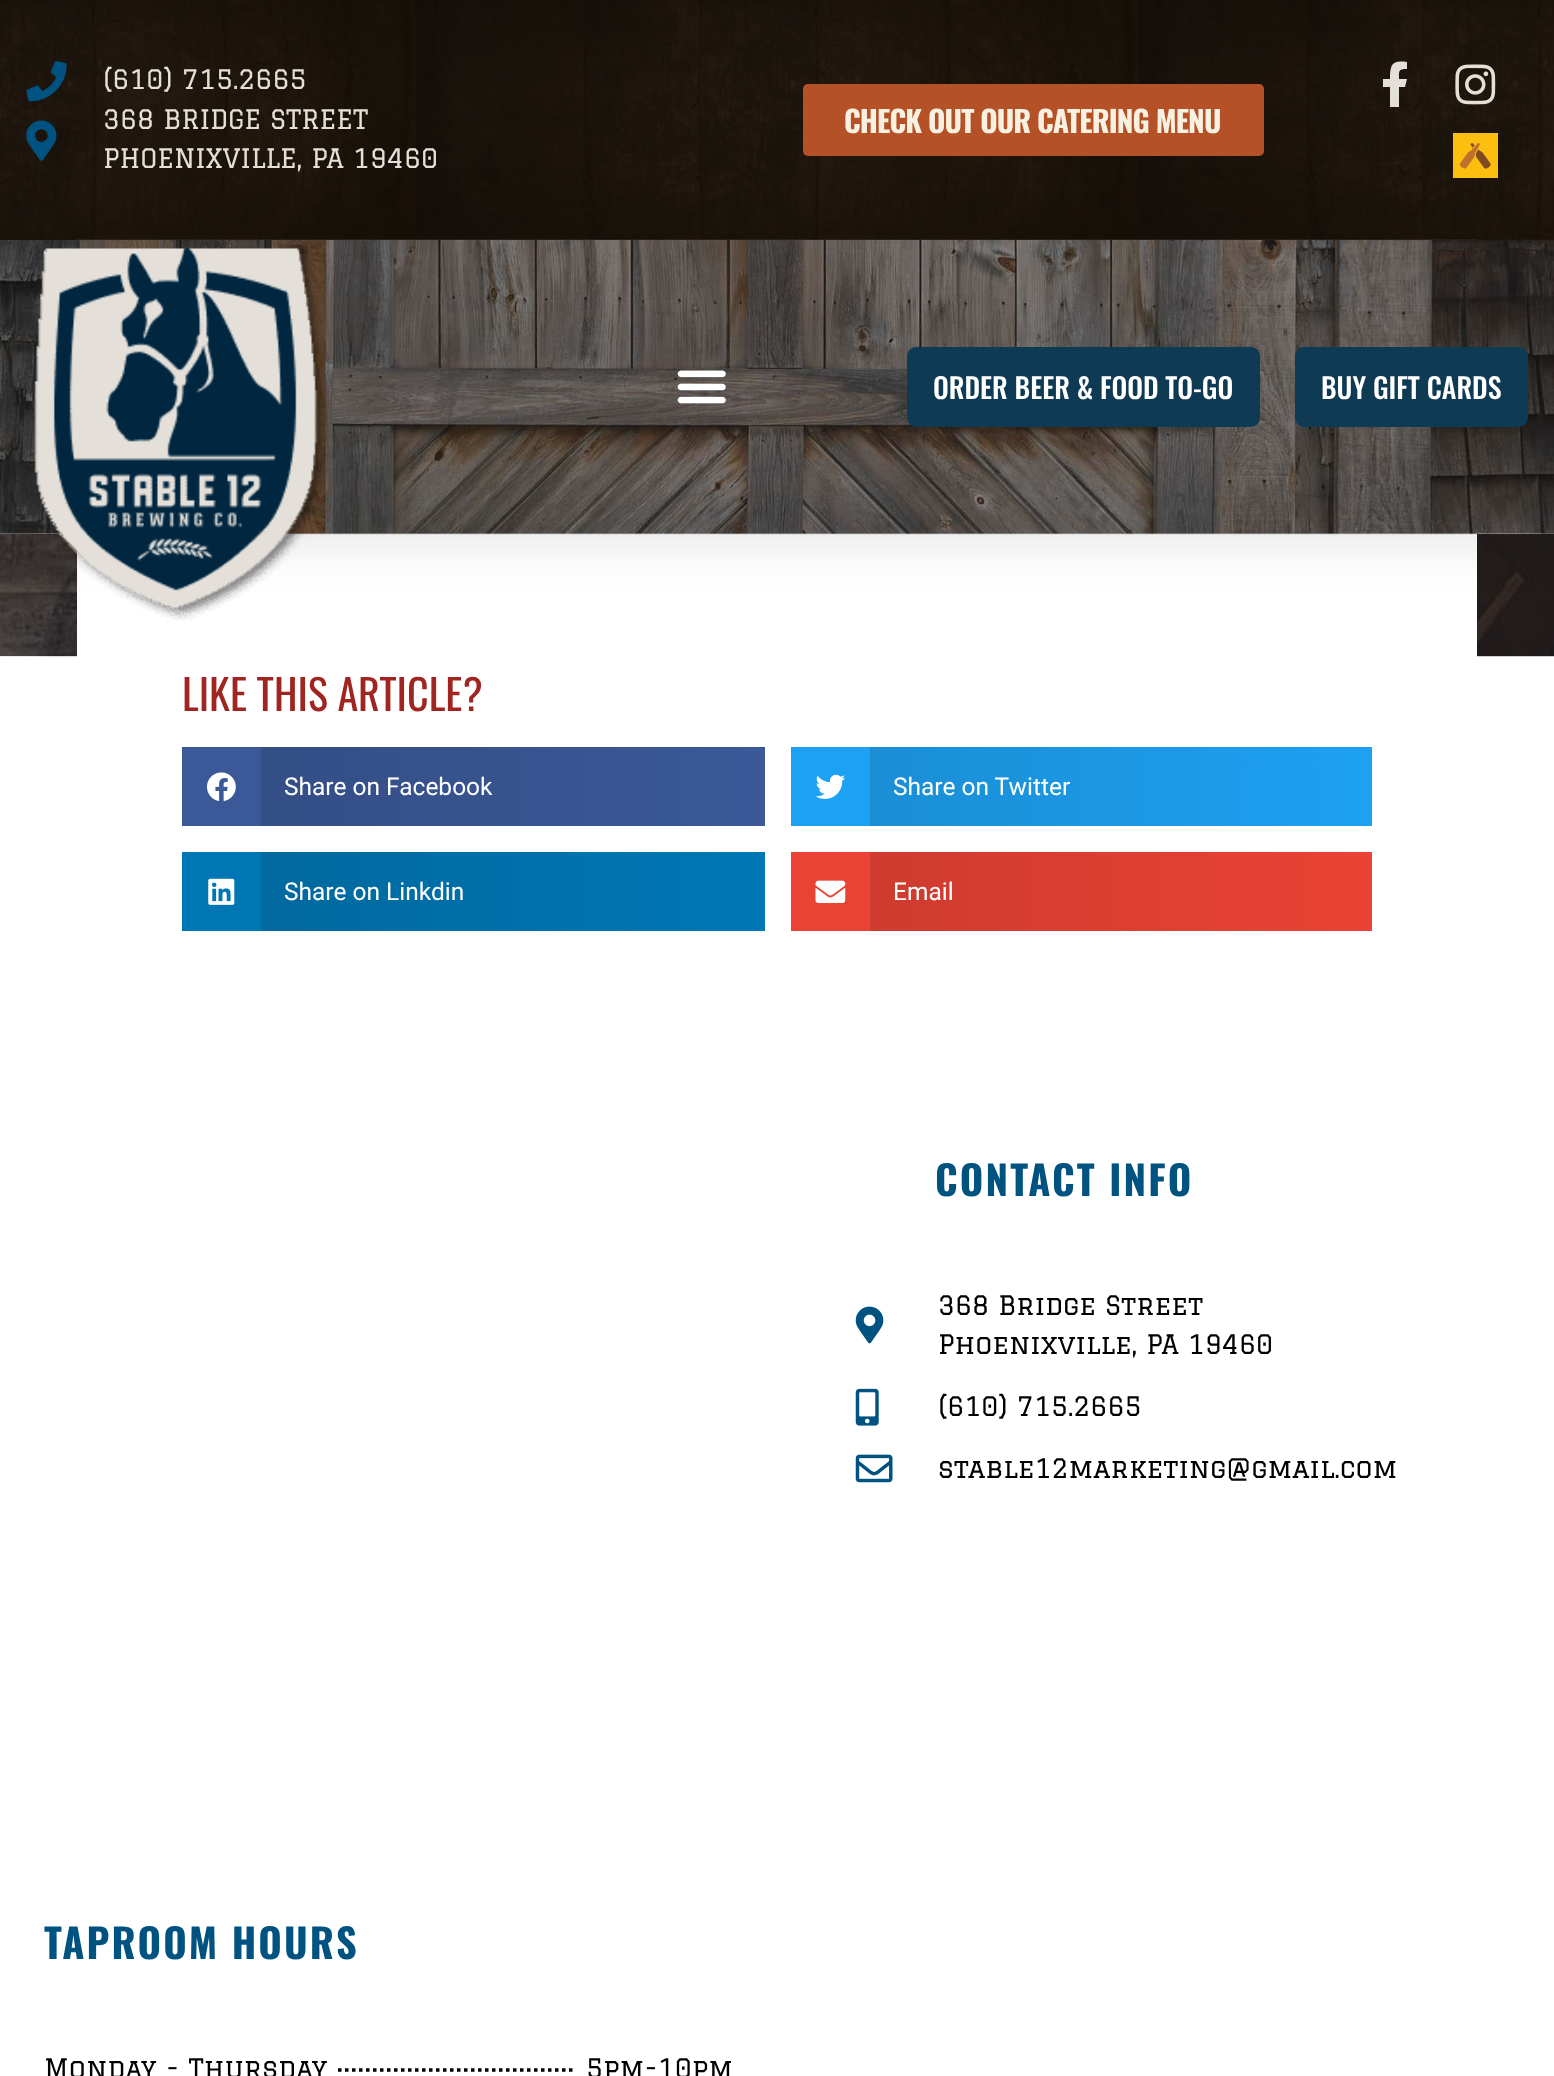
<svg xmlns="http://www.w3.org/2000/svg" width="1554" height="2076">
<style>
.a{font:26.25px Graduate;fill:#e4e0d9}
.b{font:bold 29.75px Oswald;letter-spacing:-0.9px;fill:#f8f1e2}
.c{font:500 28px Oswald;fill:#fff}
.d{font:42px Oswald;fill:#a02521}
.e{font:24.5px Roboto;fill:#fff}
.f{font:bold 40.25px Oswald;letter-spacing:2.1px;fill:#005380}
.g{font:26.25px Graduate;fill:#020101}
</style>
<defs>
<linearGradient id="g1" gradientUnits="userSpaceOnUse" x1="261" y1="787" x2="765" y2="787"><stop offset="0" stop-color="#344e86"/><stop offset="1" stop-color="#3b5998"/></linearGradient>
<linearGradient id="g2" gradientUnits="userSpaceOnUse" x1="870" y1="787" x2="1372" y2="787"><stop offset="0" stop-color="#1a8ed5"/><stop offset="1" stop-color="#1da1f2"/></linearGradient>
<linearGradient id="g3" gradientUnits="userSpaceOnUse" x1="261" y1="892" x2="765" y2="892"><stop offset="0" stop-color="#00699f"/><stop offset="1" stop-color="#0077b5"/></linearGradient>
<linearGradient id="g4" gradientUnits="userSpaceOnUse" x1="870" y1="892" x2="1372" y2="892"><stop offset="0" stop-color="#ce3b2f"/><stop offset="1" stop-color="#ea4335"/></linearGradient>
</defs>
<rect width="100%" height="100%" fill="#fff"/>
<image href="9.png" x="0" y="239" width="1554" height="418"/>
<path fill="#fff" d="M77 239h1400v418H77z"/>
<path fill="#0000001a" filter="blur(26px)" d="M0 9h1554v534H0z"/>
<image href="1.png" x="0" y="0" width="1554" height="240"/>
<path fill="#181108ba" d="M0 0h1554v240H0z"/>
<image href="2.png" x="26" y="61" width="41" height="41"/>
<image href="3.png" x="26" y="120" width="31" height="41"/>
<rect fill="#b55126" x="803" y="84" width="461" height="72" rx="5"/>
<path fill="#e4e0d9" d="M1405 87h-6v20h-9v-20h-7v-8h7c0-15 2-19 17-17v7c-9 0-8 2-8 10h8z"/>
<image href="4.png" x="1455" y="64" width="41" height="41"/>
<image href="5.png" x="1453" y="133" width="45" height="45"/>
<path fill="#fff" d="M0 533h1554v1H0z"/>
<image href="6.png" x="0" y="240" width="1554" height="295"/>
<path fill="#41414145" d="M0 240h1554v294H0z"/>
<image href="7.png" x="34" y="248" width="294" height="375"/>
<image href="8.png" x="677" y="370" width="49" height="34"/>
<rect fill="#0f3a53" x="907" y="347" width="353" height="80" rx="9"/>
<rect fill="#0f3a53" x="1295" y="347" width="233" height="80" rx="9"/>
<path fill="#3b5998" d="M182 747h79v79H182z"/>
<image href="10.png" x="207" y="772" width="29" height="29"/>
<path fill="url(#g1)" d="M261 747h504v79H261z"/>
<path fill="#1da1f2" d="M791 747h79v79H791z"/>
<image href="11.png" x="815" y="774" width="31" height="25"/>
<path fill="url(#g2)" d="M870 747h502v79H870z"/>
<path fill="#0077b5" d="M182 852h79v79H182z"/>
<image href="12.png" x="208" y="878" width="27" height="27"/>
<path fill="url(#g3)" d="M261 852h504v79H261z"/>
<path fill="#ea4335" d="M791 852h79v79H791z"/>
<image href="13.png" x="815" y="880" width="31" height="23"/>
<path fill="url(#g4)" d="M870 852h502v79H870z"/>
<image href="14.png" x="855" y="1306" width="29" height="38"/>
<image href="15.png" x="855" y="1388" width="24" height="38"/>
<image href="16.png" x="855" y="1454" width="38" height="29"/>
<path fill="none" stroke="#020101" stroke-width="3.5" stroke-dasharray="3.5 3.5" d="M338 2070h238"/>
<text class="a" x="103" y="89">(610) 715.2665</text>
<text class="a" x="103" y="129">368 BRIDGE STREET</text>
<text class="a" x="103" y="168">PHOENIXVILLE, PA 19460</text>
<text class="b" x="844" y="133">CHECK OUT OUR CATERING MENU</text>
<text class="c" x="933" y="399">ORDER BEER &amp; FOOD TO-GO</text>
<text class="c" x="1321" y="399">BUY GIFT CARDS</text>
<text class="d" x="182" y="711">LIKE THIS ARTICLE?</text>
<text class="e" x="284" y="795">Share on Facebook</text>
<text class="e" x="893" y="795">Share on Twitter</text>
<text class="e" x="284" y="900">Share on Linkdin</text>
<text class="e" x="893" y="900">Email</text>
<text class="f" x="935" y="1196">CONTACT INFO</text>
<text class="g" x="938" y="1315">368 Bridge Street</text>
<text class="g" x="938" y="1354">Phoenixville, PA 19460</text>
<text class="g" x="938" y="1416">(610) 715.2665</text>
<text class="g" x="938" y="1478">stable12marketing@gmail.com</text>
<text class="f" x="44" y="1959">TAPROOM HOURS</text>
<text class="g" x="44" y="2078">Monday - Thursday</text>
<text class="g" x="586" y="2078">5pm-10pm</text>
</svg>
